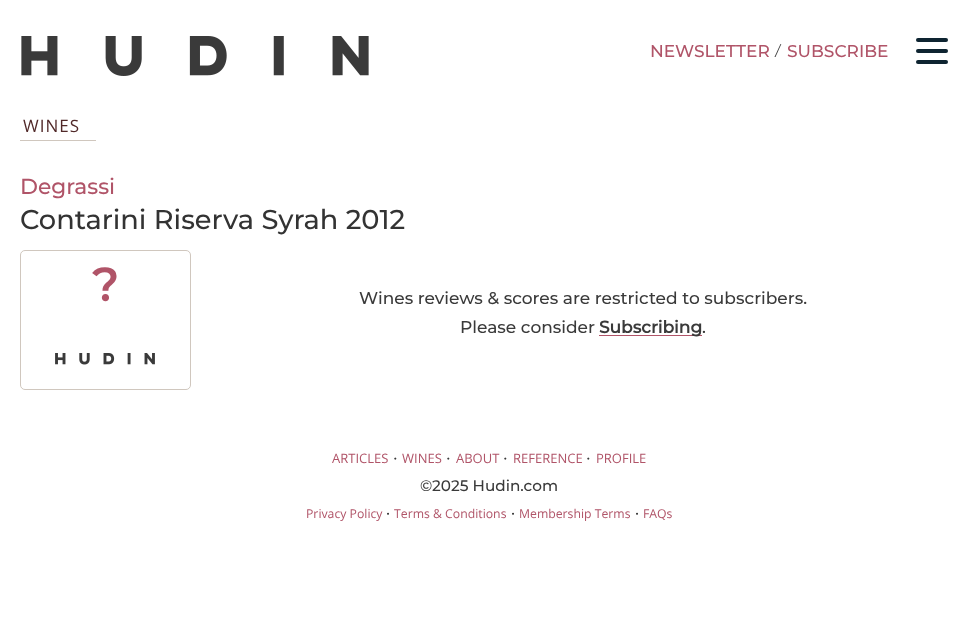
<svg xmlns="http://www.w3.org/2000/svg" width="978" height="636">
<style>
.a{font:100 17px Montserrat;fill:#b05468}
.b{font:17px Libre Baskerville;fill:#3a3a3a}
.c{font:17px Open Sans;letter-spacing:1px;fill:#512929}
.d{font:100 21.75px Montserrat;fill:#b05468}
.e{font:100 27.25px Montserrat;fill:#333}
.f{font:bold 46px Montserrat;fill:#b05468}
.g{font:100 17px Montserrat;fill:#3a3a3a}
.h{font:bold 17px Montserrat;fill:#3a3a3a}
.i{font:13px Open Sans;fill:#b05468}
.j{font:16px Libre Baskerville;fill:#3a3a3a}
.k{font:100 15.25px Montserrat;fill:#3a3a3a}
.l{font:12.25px Open Sans;fill:#b05468}
</style>
<rect width="100%" height="100%" fill="#fff"/>
<image href="1.png" x="21" y="36" width="348" height="40"/>
<rect fill="#0e2431" x="916" y="38" width="32" height="4" rx="2"/>
<rect fill="#0e2431" x="916" y="49" width="32" height="4" rx="2"/>
<rect fill="#0e2431" x="916" y="60" width="32" height="4" rx="2"/>
<path fill="#d0c7be" d="M20 140h76v1H20z"/>
<rect fill="none" stroke="#d0c7be" x="20.5" y="250.5" width="170" height="139" rx="4.5"/>
<image href="2.png" x="55" y="353" width="100" height="12"/>
<path fill="#b05468" d="M599 335h103v1H599z"/>
<text class="a" x="650" y="57">NEWSLETTER</text>
<text class="b" x="774" y="57">/</text>
<text class="a" x="787" y="57">SUBSCRIBE</text>
<text class="c" x="23" y="132">WINES</text>
<text class="d" x="20" y="194">Degrassi</text>
<text class="e" x="20" y="229">Contarini Riserva Syrah 2012</text>
<text class="f" x="92" y="301">?</text>
<text class="g" x="359" y="304">Wines reviews &amp; scores are restricted to subscribers.</text>
<text class="g" x="460" y="333">Please consider</text>
<text class="h" x="599" y="333">Subscribing</text>
<text class="g" x="702" y="333">.</text>
<text class="i" x="332" y="463">ARTICLES</text>
<text class="j" x="393" y="463">·</text>
<text class="i" x="402" y="463">WINES</text>
<text class="j" x="446" y="463">·</text>
<text class="i" x="456" y="463">ABOUT</text>
<text class="j" x="503" y="463">·</text>
<text class="i" x="513" y="463">REFERENCE</text>
<text class="j" x="586" y="463">·</text>
<text class="i" x="596" y="463">PROFILE</text>
<text class="k" x="420" y="491">©2025 Hudin.com</text>
<text class="l" x="306" y="518">Privacy Policy</text>
<text class="k" x="386" y="518">·</text>
<text class="l" x="394" y="518">Terms &amp; Conditions</text>
<text class="k" x="511" y="518">·</text>
<text class="l" x="519" y="518">Membership Terms</text>
<text class="k" x="635" y="518">·</text>
<text class="l" x="643" y="518">FAQs</text>
</svg>
